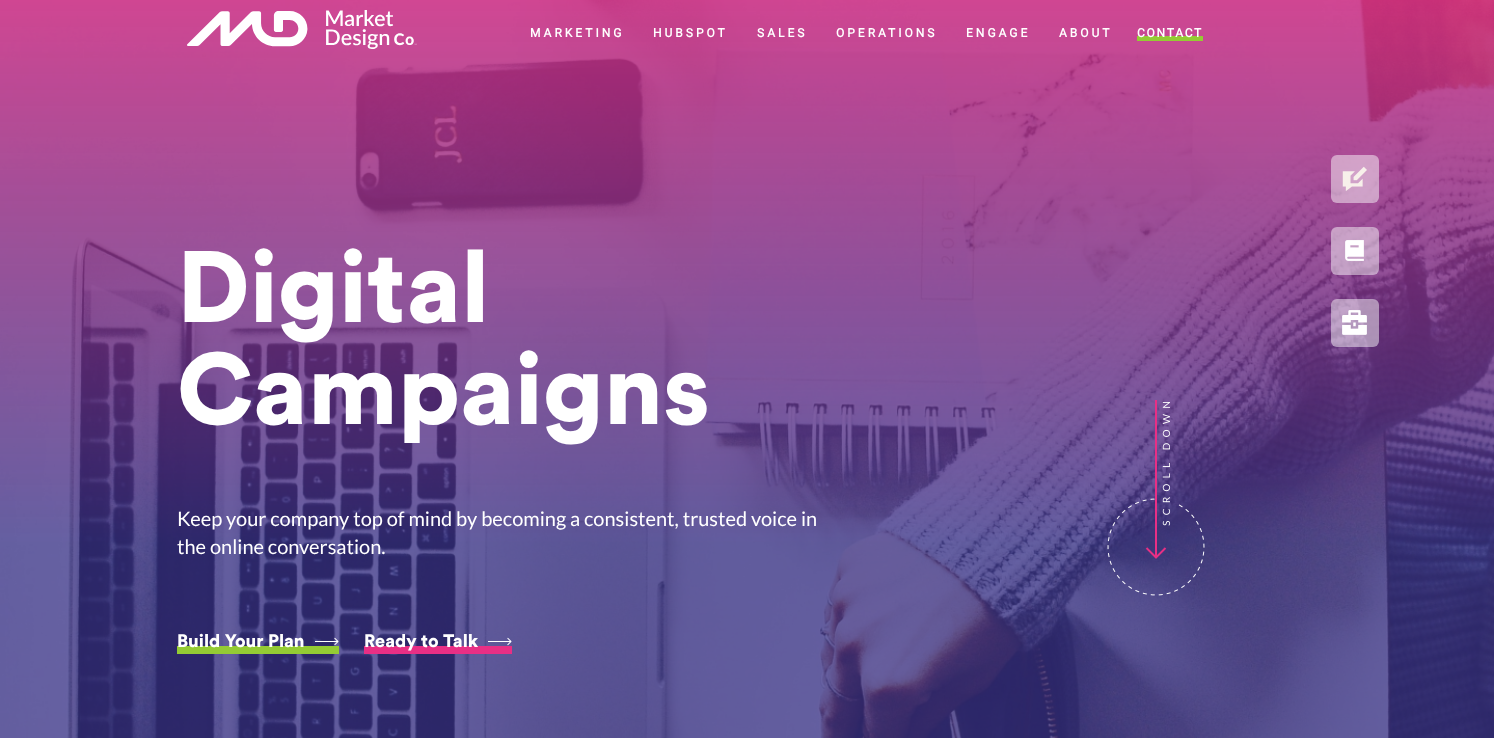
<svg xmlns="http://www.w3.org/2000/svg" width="1494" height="738">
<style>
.a{font:bold 12px Roboto;letter-spacing:3px;fill:#fff}
.b{font:bold 12px Roboto;letter-spacing:1.75px;fill:#fff}
.c{font:900 100px Circular;fill:#fff}
.d{font:20px Lato;fill:#fff}
.e{font:900 18px Circular;fill:#fff}
</style>
<rect width="100%" height="100%" fill="#fff"/>
<image href="2.png" x="0" y="0" width="1494" height="738"/>
<image href="1.png" x="187" y="10" width="230" height="39"/>
<path fill="#94cb34" d="M1137 36h66v5H1137z"/>
<image href="3.png" x="315" y="637" width="24" height="9"/>
<path fill="#94cb34" d="M177 646h162v8H177z"/>
<image href="4.png" x="488" y="637" width="24" height="9"/>
<path fill="#e82f85" d="M364 646h148v8H364z"/>
<image href="5.png" x="1107" y="400" width="98" height="196"/>
<rect fill="#ffffff7a" x="1331" y="155" width="48" height="48" rx="6"/>
<image href="6.png" x="1342" y="166" width="25" height="25"/>
<rect fill="#ffffff7a" x="1331" y="227" width="48" height="48" rx="6"/>
<image href="7.png" x="1345" y="240" width="19" height="21"/>
<rect fill="#ffffff7a" x="1331" y="299" width="48" height="48" rx="6"/>
<image href="8.png" x="1342" y="310" width="25" height="25"/>
<text class="a" x="530" y="37">MARKETING</text>
<text class="a" x="653" y="37">HUBSPOT</text>
<text class="a" x="757" y="37">SALES</text>
<text class="a" x="836" y="37">OPERATIONS</text>
<text class="a" x="966" y="37">ENGAGE</text>
<text class="a" x="1059" y="37">ABOUT</text>
<text class="b" x="1137" y="37">CONTACT</text>
<text class="c" x="177" y="322">Digital</text>
<text class="c" x="177" y="424">Campaigns</text>
<text class="d" x="177" y="526">Keep your company top of mind by becoming a consistent, trusted voice in</text>
<text class="d" x="177" y="554">the online conversation.</text>
<text class="e" x="177" y="647">Build Your Plan</text>
<text class="e" x="364" y="647">Ready to Talk</text>
</svg>
